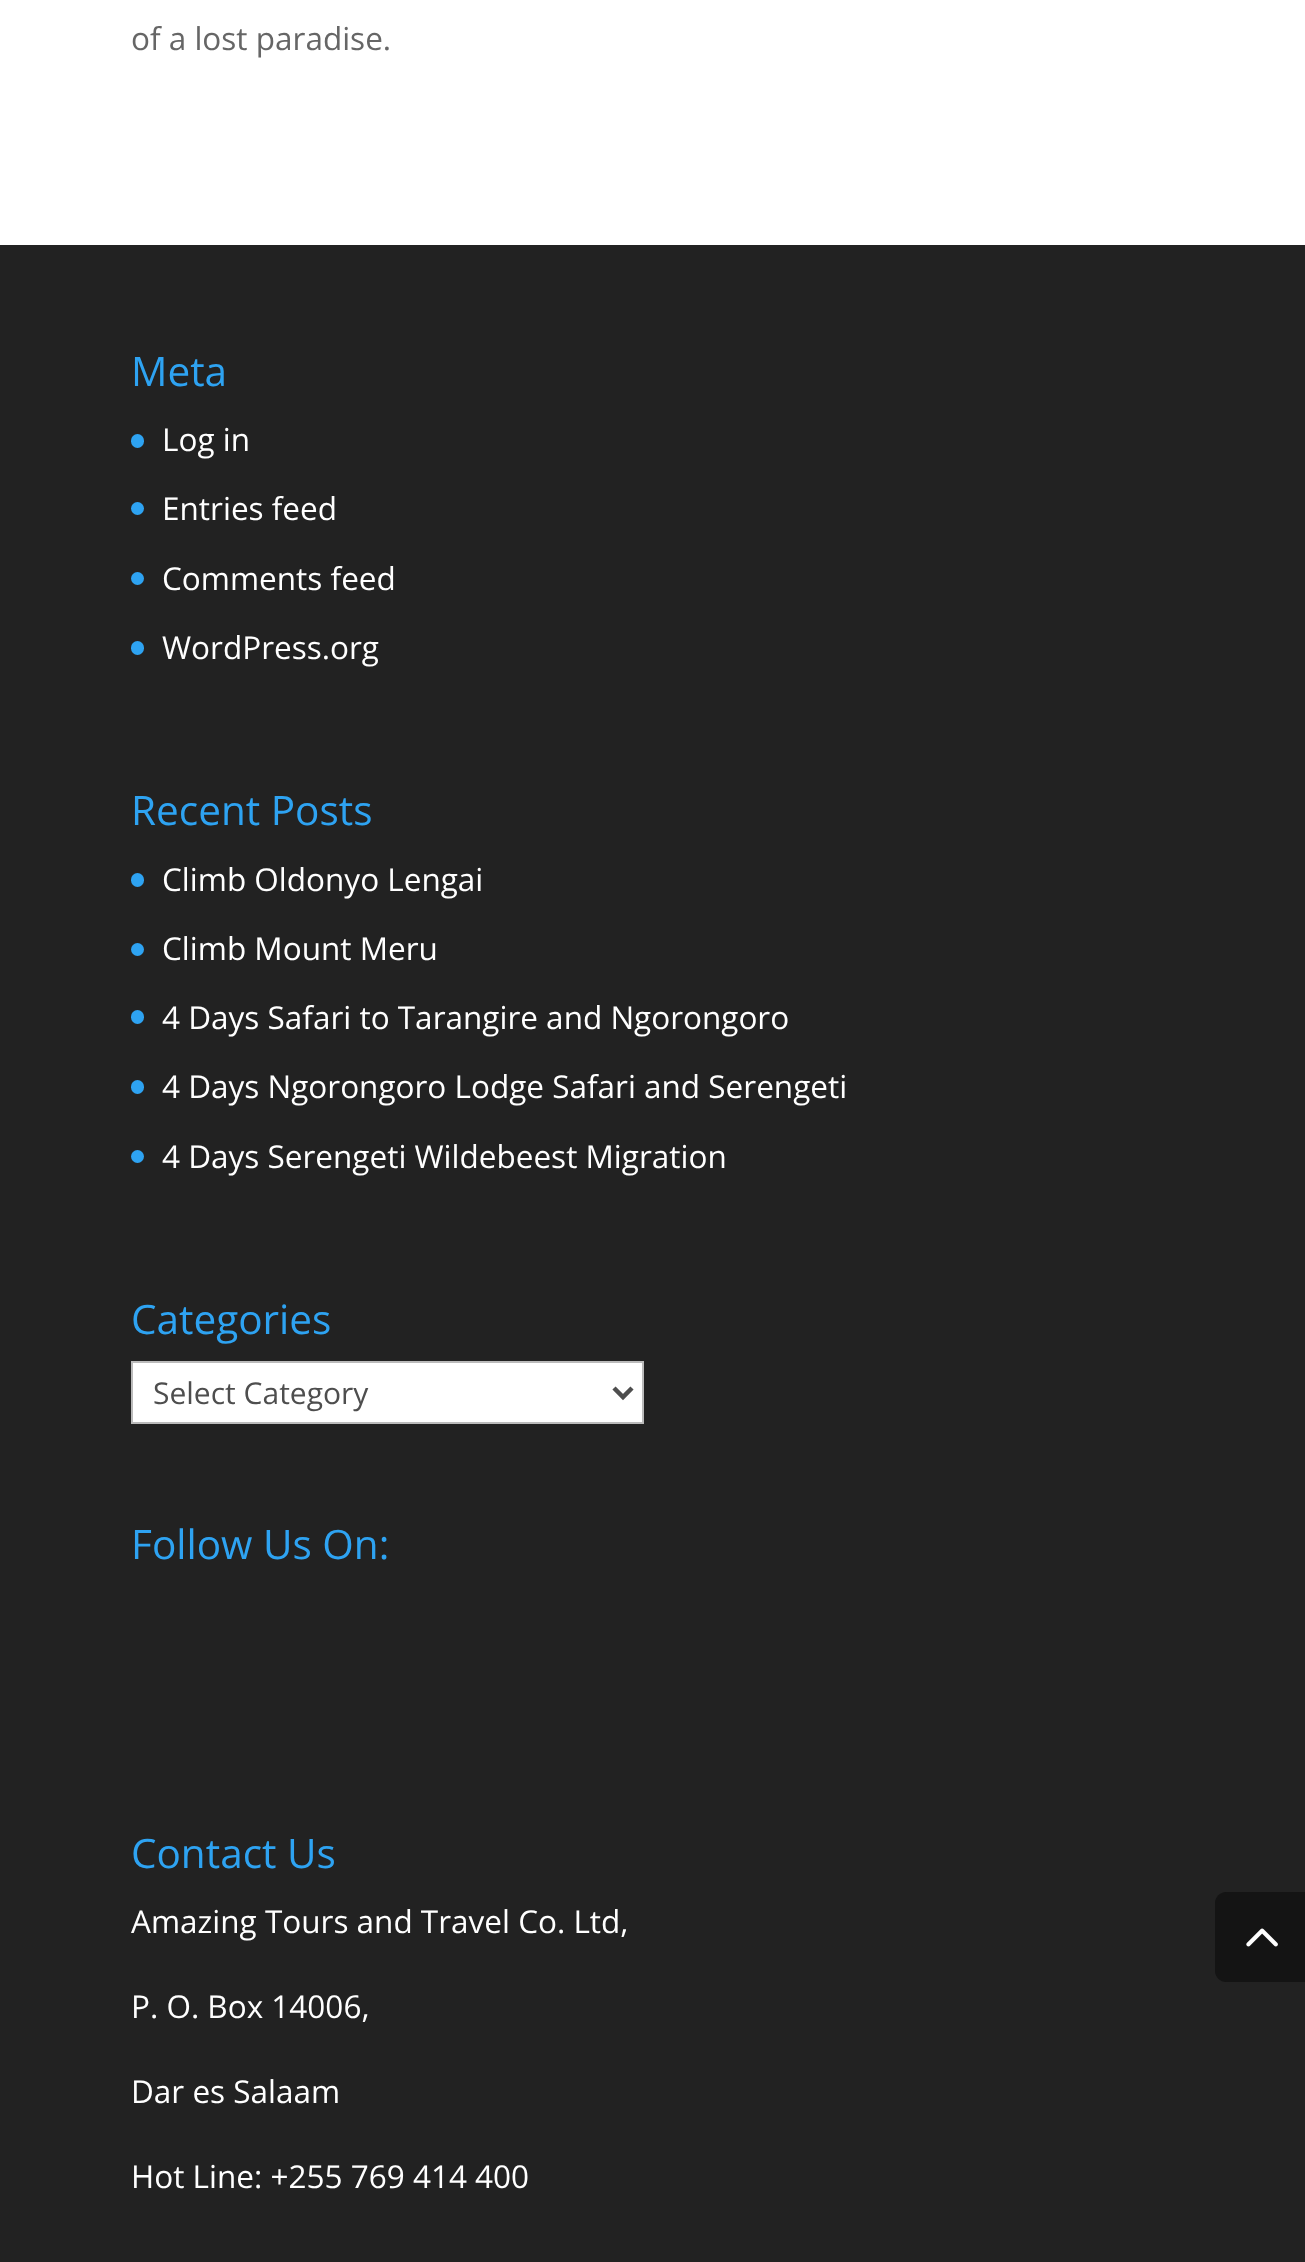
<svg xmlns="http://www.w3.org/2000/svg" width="1305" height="2262">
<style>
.a{font:31.5px Open Sans;fill:#666}
.b{font:40.5px Open Sans;fill:#2ea3f2}
.c{font:31.5px Open Sans;fill:#fff}
.d{font:30px Open Sans;fill:#4e4e4e}
</style>
<rect width="100%" height="100%" fill="#fff"/>
<path fill="#222" d="M0 245h1305v2017H0z"/>
<rect fill="#2ea3f2" x="131" y="434" width="13" height="14" rx="6.5"/>
<circle fill="#2ea3f2" cx="137.5" cy="508.5" r="6.5"/>
<circle fill="#2ea3f2" cx="137.5" cy="578.5" r="6.5"/>
<rect fill="#2ea3f2" x="131" y="641" width="13" height="14" rx="6.5"/>
<rect fill="#2ea3f2" x="131" y="873" width="13" height="14" rx="6.5"/>
<circle fill="#2ea3f2" cx="137.5" cy="949.5" r="6.5"/>
<rect fill="#2ea3f2" x="131" y="1010" width="13" height="14" rx="6.5"/>
<rect fill="#2ea3f2" x="131" y="1080" width="13" height="14" rx="6.5"/>
<circle fill="#2ea3f2" cx="137.5" cy="1156.5" r="6.5"/>
<path fill="#fff" stroke="#bbb" stroke-width="2" d="M132 1362h511v61H132z"/>
<path fill="none" stroke="#4e4e4e" stroke-width="4.5" d="M614 1388l9 9l9-9"/>
<path fill="#141414" d="M1226 1892h79v90h-79c-6 0-11-5-11-11v-68c0-6 5-11 11-11z"/>
<image href="1.png" x="1246" y="1928" width="32" height="19"/>
<text class="a" x="131" y="50">of a lost paradise.</text>
<text class="b" x="131" y="386">Meta</text>
<text class="c" x="162" y="451">Log in</text>
<text class="c" x="162" y="520">Entries feed</text>
<text class="c" x="162" y="590">Comments feed</text>
<text class="c" x="162" y="659">WordPress.org</text>
<text class="b" x="131" y="825">Recent Posts</text>
<text class="c" x="162" y="891">Climb Oldonyo Lengai</text>
<text class="c" x="162" y="960">Climb Mount Meru</text>
<text class="c" x="162" y="1029">4 Days Safari to Tarangire and Ngorongoro</text>
<text class="c" x="162" y="1098">4 Days Ngorongoro Lodge Safari and Serengeti</text>
<text class="c" x="162" y="1168">4 Days Serengeti Wildebeest Migration</text>
<text class="b" x="131" y="1334">Categories</text>
<text class="d" x="153" y="1404">Select Category</text>
<text class="b" x="131" y="1559">Follow Us On:</text>
<text class="b" x="131" y="1868">Contact Us</text>
<text class="c" x="131" y="1933">Amazing Tours and Travel Co. Ltd,</text>
<text class="c" x="131" y="2018">P. O. Box 14006,</text>
<text class="c" x="131" y="2103">Dar es Salaam</text>
<text class="c" x="131" y="2188">Hot Line: +255 769 414 400</text>
</svg>
